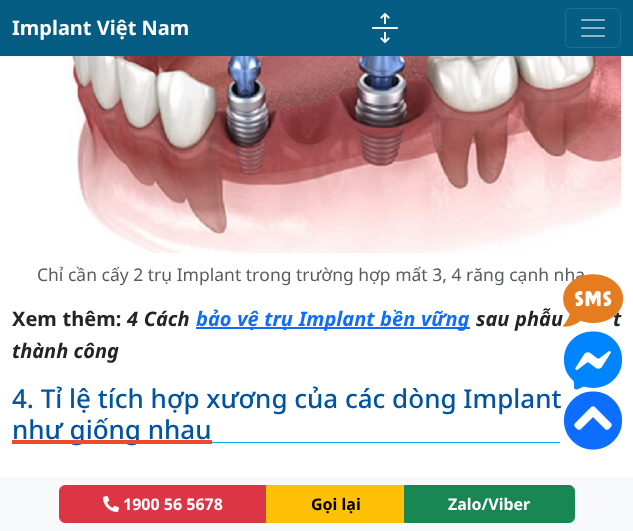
<svg xmlns="http://www.w3.org/2000/svg" width="633" height="531">
<style>*{font-kerning:none!important;font-variant-ligatures:none!important}</style>
<style>
.a{font:bold 20px Noto Sans;fill:#fff}
.b{font:17.5px Noto Sans;fill:#595c5f}
.c{font:bold 20px Noto Sans;fill:#212529}
.d{font:italic bold 20px Noto Sans;fill:#212529}
.e{font:italic bold 20px Noto Sans;fill:#0d6efd}
.f{font:500 26px Noto Sans;fill:#0154a2}
.g{font:bold 16px Noto Sans;fill:#fff}
.h{font:bold 16px Noto Sans;fill:#000}
</style>
<rect width="100%" height="100%" fill="#fff"/>
<path fill="#065d84" d="M0 0h633v56H0z"/>
<image href="1.png" x="372" y="13" width="27" height="30"/>
<rect fill="none" stroke="#1f6d90" x="565.5" y="8.5" width="55" height="39" rx="5.5"/>
<image href="2.png" x="581" y="19" width="24" height="18"/>
<image href="3.png" x="67" y="56" width="554" height="197"/>
<path fill="#0d6efd" d="M196 327h274v2H196z"/>
<path fill="#05ade6" d="M212 442h348v1H212z"/>
<image href="5.png" x="563" y="331" width="60" height="59"/>
<image href="6.png" x="563" y="391" width="60" height="59"/>
<path fill="#f8f9fa" d="M0 477h633v54H0z"/>
<path fill="#dc3545" stroke="#dc3545" d="M65 485.5h201.5v37h-201.5c-3 0-5.5-2.5-5.5-5.5v-26c0-3 2.5-5.5 5.5-5.5z"/>
<image href="7.png" x="103" y="496" width="16" height="16"/>
<path fill="#ffc107" d="M266 485h138v38H266z"/>
<path fill="#198754" stroke="#198754" d="M404.5 485.5h164.5c3 0 5.5 2.5 5.5 5.5v26c0 3-2.5 5.5-5.5 5.5h-164.5z"/>
<text class="a" x="12" y="35">Implant Việt Nam</text>
<text class="b" x="37" y="281">Chỉ cần cấy 2 trụ Implant trong trường hợp mất 3, 4 răng cạnh nha</text>
<text class="c" x="12" y="326" word-spacing="0.5">Xem thêm:</text>
<text class="d" x="127" y="326" word-spacing="0.5">4 Cách</text>
<text class="e" x="196" y="326" word-spacing="0.5">bảo vệ trụ Implant bền vững</text>
<text class="d" x="476" y="326" word-spacing="0.5">sau phẫu</text>
<text class="d" x="613" y="326" word-spacing="0.5">t</text>
<text class="d" x="12" y="358">thành công</text>
<text class="f" x="12" y="408">4. Tỉ lệ tích hợp xương của các dòng Implant</text>
<text class="f" x="12" y="439">như giống nhau</text>
<path fill="#ef482a" d="M12 440h200v4H12z"/>
<image href="4.png" x="563" y="274" width="61" height="53"/>
<text class="g" x="123" y="510">1900 56 5678</text>
<text class="h" x="311" y="510">Gọi lại</text>
<text class="g" x="448" y="510">Zalo/Viber</text>
</svg>
